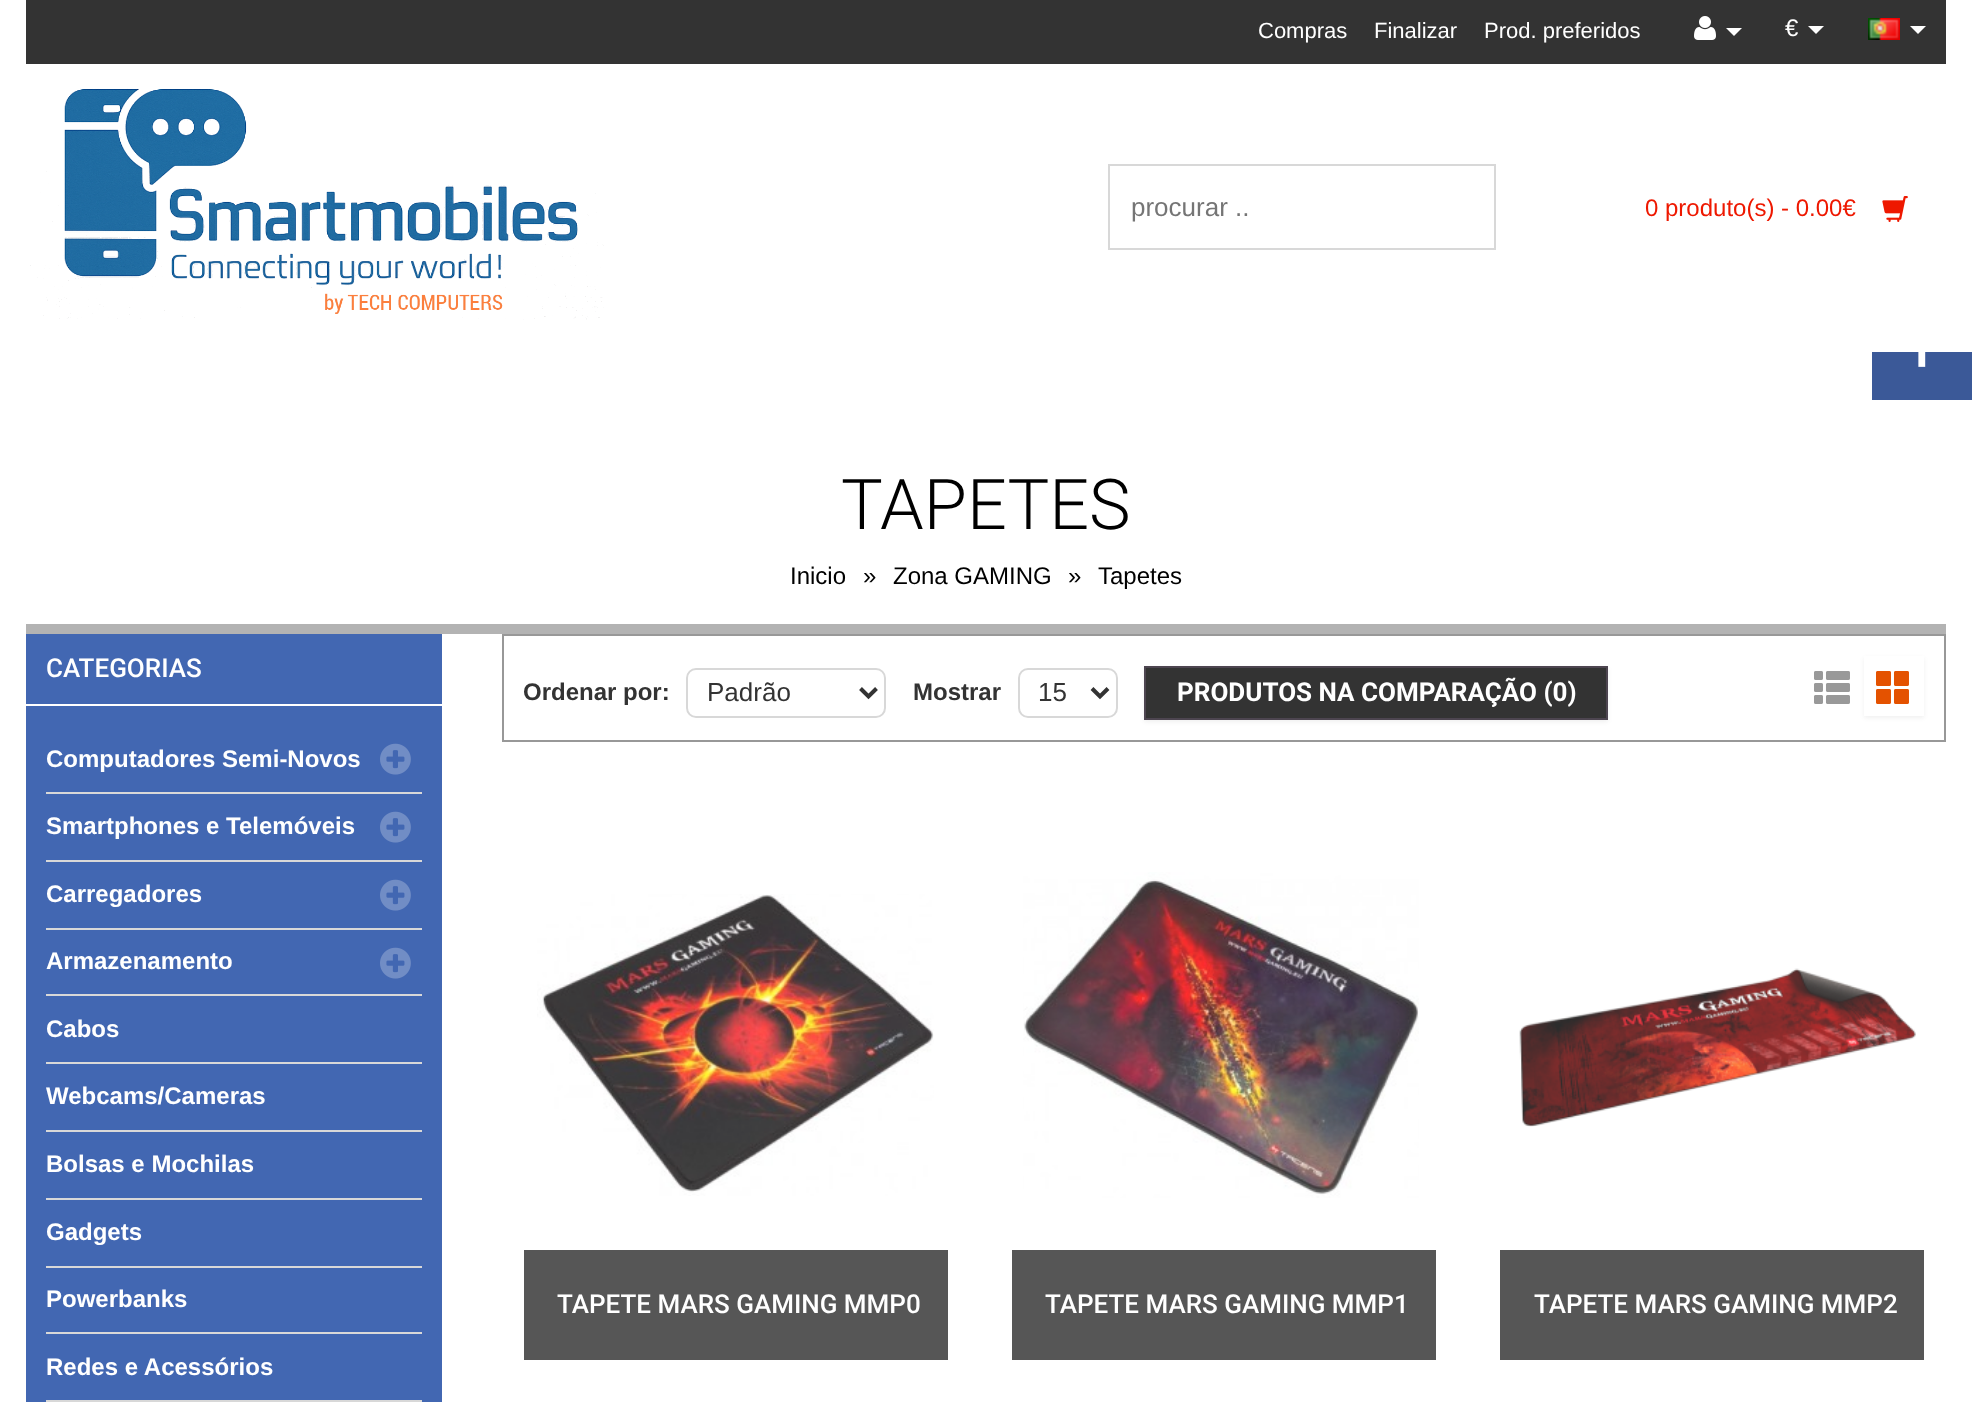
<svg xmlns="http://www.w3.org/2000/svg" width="1972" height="1402">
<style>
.a{font:22px Liberation Sans;fill:#fff}
.b{font:24px Liberation Sans;fill:#fff}
.c{font:26px Liberation Sans;fill:#757575}
.d{font:24px Liberation Sans;fill:#ee1800}
.e{font:300 70px Roboto;fill:#000}
.f{font:24px Liberation Sans;fill:#000}
.g{font:500 26px Roboto;fill:#fff}
.h{font:bold 24px Liberation Sans;fill:#fff}
.i{font:bold 24px Liberation Sans;fill:#333}
.j{font:26px Liberation Sans;fill:#333}
.k{font:bold 26px Roboto;fill:#fff}
</style>
<defs>
<clipPath id="clip1"><path d="M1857 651h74v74h-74zm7 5h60v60h-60z" clip-rule="evenodd"/></clipPath>
</defs>
<rect width="100%" height="100%" fill="#fff"/>
<path fill="#333" d="M26 0h1920v64H26z"/>
<image href="1.png" x="1694" y="16" width="22" height="24"/>
<path fill="#fff" d="M1726 28h16l-8 8z"/>
<path fill="#fff" d="M1808 26h16l-8 8z"/>
<image href="2.png" x="1868" y="18" width="32" height="22"/>
<path fill="#fff" d="M1910 26h16l-8 8z"/>
<image href="3.png" x="30" y="88" width="574" height="232"/>
<path fill="none" stroke="#d8d8d8" stroke-width="2" d="M1109 165h386v84H1109z"/>
<image href="4.png" x="1882" y="196" width="26" height="26"/>
<path fill="#b3b3b3" d="M26 624h1920v10H26z"/>
<path fill="#4267b2" d="M26 634h416v70H26z"/>
<path fill="#4267b2" d="M26 706h416v696H26z"/>
<path fill="#d8d8d8" d="M46 792h376v2H46z"/>
<image href="5.png" x="380" y="743" width="31" height="32"/>
<path fill="#d8d8d8" d="M46 860h376v2H46z"/>
<image href="5.png" x="380" y="811" width="31" height="32"/>
<path fill="#d8d8d8" d="M46 928h376v2H46z"/>
<image href="5.png" x="380" y="879" width="31" height="32"/>
<path fill="#d8d8d8" d="M46 994h376v2H46z"/>
<image href="5.png" x="380" y="947" width="31" height="32"/>
<path fill="#d8d8d8" d="M46 1062h376v2H46z"/>
<path fill="#d8d8d8" d="M46 1130h376v2H46z"/>
<path fill="#d8d8d8" d="M46 1198h376v2H46z"/>
<path fill="#d8d8d8" d="M46 1266h376v2H46z"/>
<path fill="#d8d8d8" d="M46 1332h376v2H46z"/>
<path fill="#d8d8d8" d="M46 1400h376v2H46z"/>
<path fill="none" stroke="#989898" stroke-width="2" d="M503 635h1442v106H503z"/>
<rect fill="none" stroke="#d8d8d8" stroke-width="2" x="687" y="669" width="198" height="48" rx="9"/>
<path fill="none" stroke="#333" stroke-width="4" d="M860.5 688.5l8 8l8-8"/>
<rect fill="none" stroke="#d8d8d8" stroke-width="2" x="1019" y="669" width="98" height="48" rx="9"/>
<path fill="none" stroke="#333" stroke-width="4" d="M1092 688.5l8 8l8-8"/>
<path fill="#0000000f" filter="blur(2px)" d="M1144 668h464v54H1144z"/>
<path fill="#333" stroke="#4d4550" stroke-width="2" d="M1145 667h462v52H1145z"/>
<image href="6.png" x="1814" y="671" width="36" height="33"/>
<g clip-path="url(#clip1)">
<path fill="#0000000f" filter="blur(2px)" d="M1864 658h60v60H1864z"/>
</g>
<image href="7.png" x="1876" y="671" width="33" height="33"/>
<image href="8.png" x="537" y="894" width="397" height="302"/>
<path fill="#565656" d="M524 1250h424v110H524z"/>
<image href="9.png" x="1023" y="872" width="396" height="326"/>
<path fill="#565656" d="M1012 1250h424v110H1012z"/>
<image href="10.png" x="1519" y="968" width="397" height="159"/>
<path fill="#565656" d="M1500 1250h424v110H1500z"/>
<path fill="#3b5998" d="M1872 352h100v48H1872z"/>
<image href="11.png" x="1918" y="352" width="8" height="15"/>
<text class="a" x="1258" y="38">Compras</text>
<text class="a" x="1374" y="38">Finalizar</text>
<text class="a" x="1484" y="38">Prod. preferidos</text>
<text class="b" x="1785" y="36">€</text>
<text class="c" x="1131" y="216">procurar ..</text>
<text class="d" x="1645" y="216">0 produto(s) - 0.00€</text>
<text class="e" x="841" y="529">TAPETES</text>
<text class="f" x="790" y="584">Inicio</text>
<text class="f" x="863" y="584">»</text>
<text class="f" x="893" y="584">Zona GAMING</text>
<text class="f" x="1068" y="584">»</text>
<text class="f" x="1098" y="584">Tapetes</text>
<text class="g" x="46" y="677">CATEGORIAS</text>
<text class="h" x="46" y="767">Computadores Semi-Novos</text>
<text class="h" x="46" y="834">Smartphones e Telemóveis</text>
<text class="h" x="46" y="902">Carregadores</text>
<text class="h" x="46" y="969">Armazenamento</text>
<text class="h" x="46" y="1037">Cabos</text>
<text class="h" x="46" y="1104">Webcams/Cameras</text>
<text class="h" x="46" y="1172">Bolsas e Mochilas</text>
<text class="h" x="46" y="1240">Gadgets</text>
<text class="h" x="46" y="1307">Powerbanks</text>
<text class="h" x="46" y="1375">Redes e Acessórios</text>
<text class="i" x="523" y="700">Ordenar por:</text>
<text class="j" x="707" y="701">Padrão</text>
<text class="i" x="913" y="700">Mostrar</text>
<text class="j" x="1038" y="701">15</text>
<text class="k" x="1177" y="701">PRODUTOS NA COMPARAÇÃO (0)</text>
<text class="g" x="557" y="1313">TAPETE MARS GAMING MMP0</text>
<text class="g" x="1045" y="1313">TAPETE MARS GAMING MMP1</text>
<text class="g" x="1534" y="1313">TAPETE MARS GAMING MMP2</text>
</svg>
